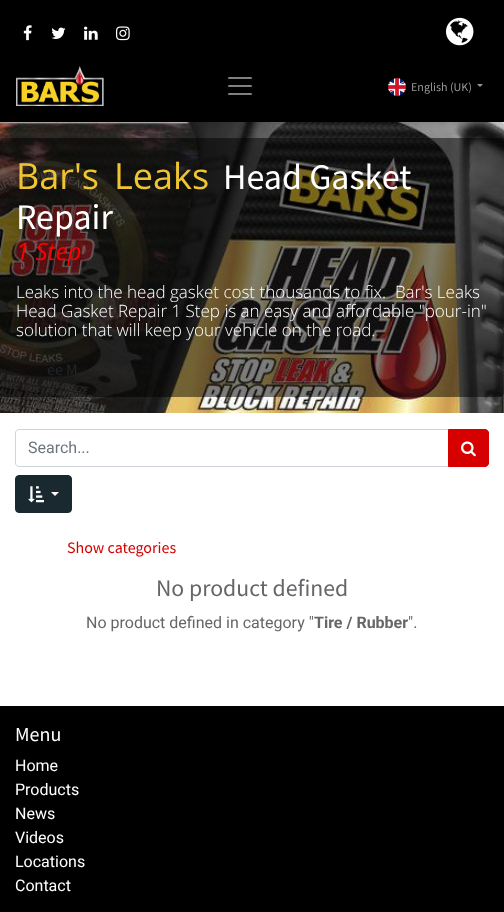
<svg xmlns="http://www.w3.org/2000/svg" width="504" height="912">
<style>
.a{font:12px Source Sans Pro;fill:#989898}
.b{font:36px Open Sans;fill:#efc631}
.c{font:36px Source Sans Pro;fill:#fff}
.d{font:italic 24px Open Sans;fill:#f00}
.e{font:300 17px Open Sans;fill:#fff}
.f{font:16px Source Sans Pro;fill:#212529}
.g{font:16px Roboto;fill:#6c757d}
.h{font:16px Source Sans Pro;fill:#d60000}
.i{font:23.75px Source Sans Pro;fill:#646669}
.j{font:16px Roboto;fill:#646669}
.k{font:bold 16px Roboto;fill:#646669}
.l{font:20px Source Sans Pro;fill:#fff}
.m{font:16px Roboto;fill:#fff}
</style>
<rect width="100%" height="100%" fill="#fff"/>
<image href="9.png" x="0" y="122" width="504" height="291"/>
<path fill="#00000012" filter="blur(2px)" d="M0 2h504v122H0z"/>
<path fill="#000" d="M0 0h504v122H0z"/>
<image href="1.png" x="23" y="25" width="9" height="16"/>
<image href="2.png" x="51" y="27" width="15" height="12"/>
<image href="3.png" x="84" y="26" width="14" height="14"/>
<image href="4.png" x="116" y="26" width="14" height="15"/>
<image href="5.png" x="446" y="17" width="28" height="29"/>
<image href="6.png" x="16" y="66" width="88" height="40"/>
<image href="7.png" x="228" y="77" width="24" height="18"/>
<image href="8.png" x="388" y="78" width="18" height="18"/>
<path fill="#989898" d="M477 84h6l-3 3z"/>
<rect fill="#00000080" y="138" width="504" height="259" rx="4"/>
<path fill="none" stroke="#ced4da" d="M19 429.5h429.5v37h-429.5c-2 0-3.5-1.5-3.5-3.5v-30c0-2 1.5-3.5 3.5-3.5z"/>
<path fill="#d60000" stroke="#d60000" d="M448.5 429.5h36.5c2 0 3.5 1.5 3.5 3.5v30c0 2-1.5 3.5-3.5 3.5h-36.5z"/>
<image href="10.png" x="461" y="441" width="15" height="16"/>
<rect fill="#1a2930" stroke="#1a2930" x="15.5" y="475.5" width="56" height="37" rx="3.5"/>
<image href="11.png" x="28" y="486" width="16" height="17"/>
<path fill="#fff" d="M51 492h8l-4 4z"/>
<path fill="#000" d="M0 706h504v206H0z"/>
<text class="a" x="411" y="91">English (UK)</text>
<text class="b" x="16" y="189">Bar's</text>
<text class="b" x="114" y="189">Leaks</text>
<text class="c" x="223" y="189">Head Gasket</text>
<text class="c" x="16" y="229">Repair</text>
<text class="d" x="16" y="260">1 Step</text>
<text class="e" xml:space="preserve" x="16" y="298">Leaks into the head gasket cost thousands to fix.  Bar's Leaks</text>
<text class="e" x="16" y="317">Head Gasket Repair 1 Step is an easy and affordable "pour-in"</text>
<text class="e" x="16" y="336">solution that will keep your vehicle on the road.</text>
<text class="f" x="47" y="375">ee M</text>
<text class="g" x="28" y="453">Search...</text>
<text class="h" x="67" y="553">Show categories</text>
<text class="i" x="156" y="596">No product defined</text>
<text class="j" x="86" y="628">No product defined in category "</text>
<text class="k" x="314" y="628">Tire / Rubber</text>
<text class="j" x="408" y="628">".</text>
<text class="l" x="15" y="741">Menu</text>
<text class="m" x="15" y="771">Home</text>
<text class="m" x="15" y="795">Products</text>
<text class="m" x="15" y="819">News</text>
<text class="m" x="15" y="843">Videos</text>
<text class="m" x="15" y="867">Locations</text>
<text class="m" x="15" y="891">Contact</text>
</svg>
